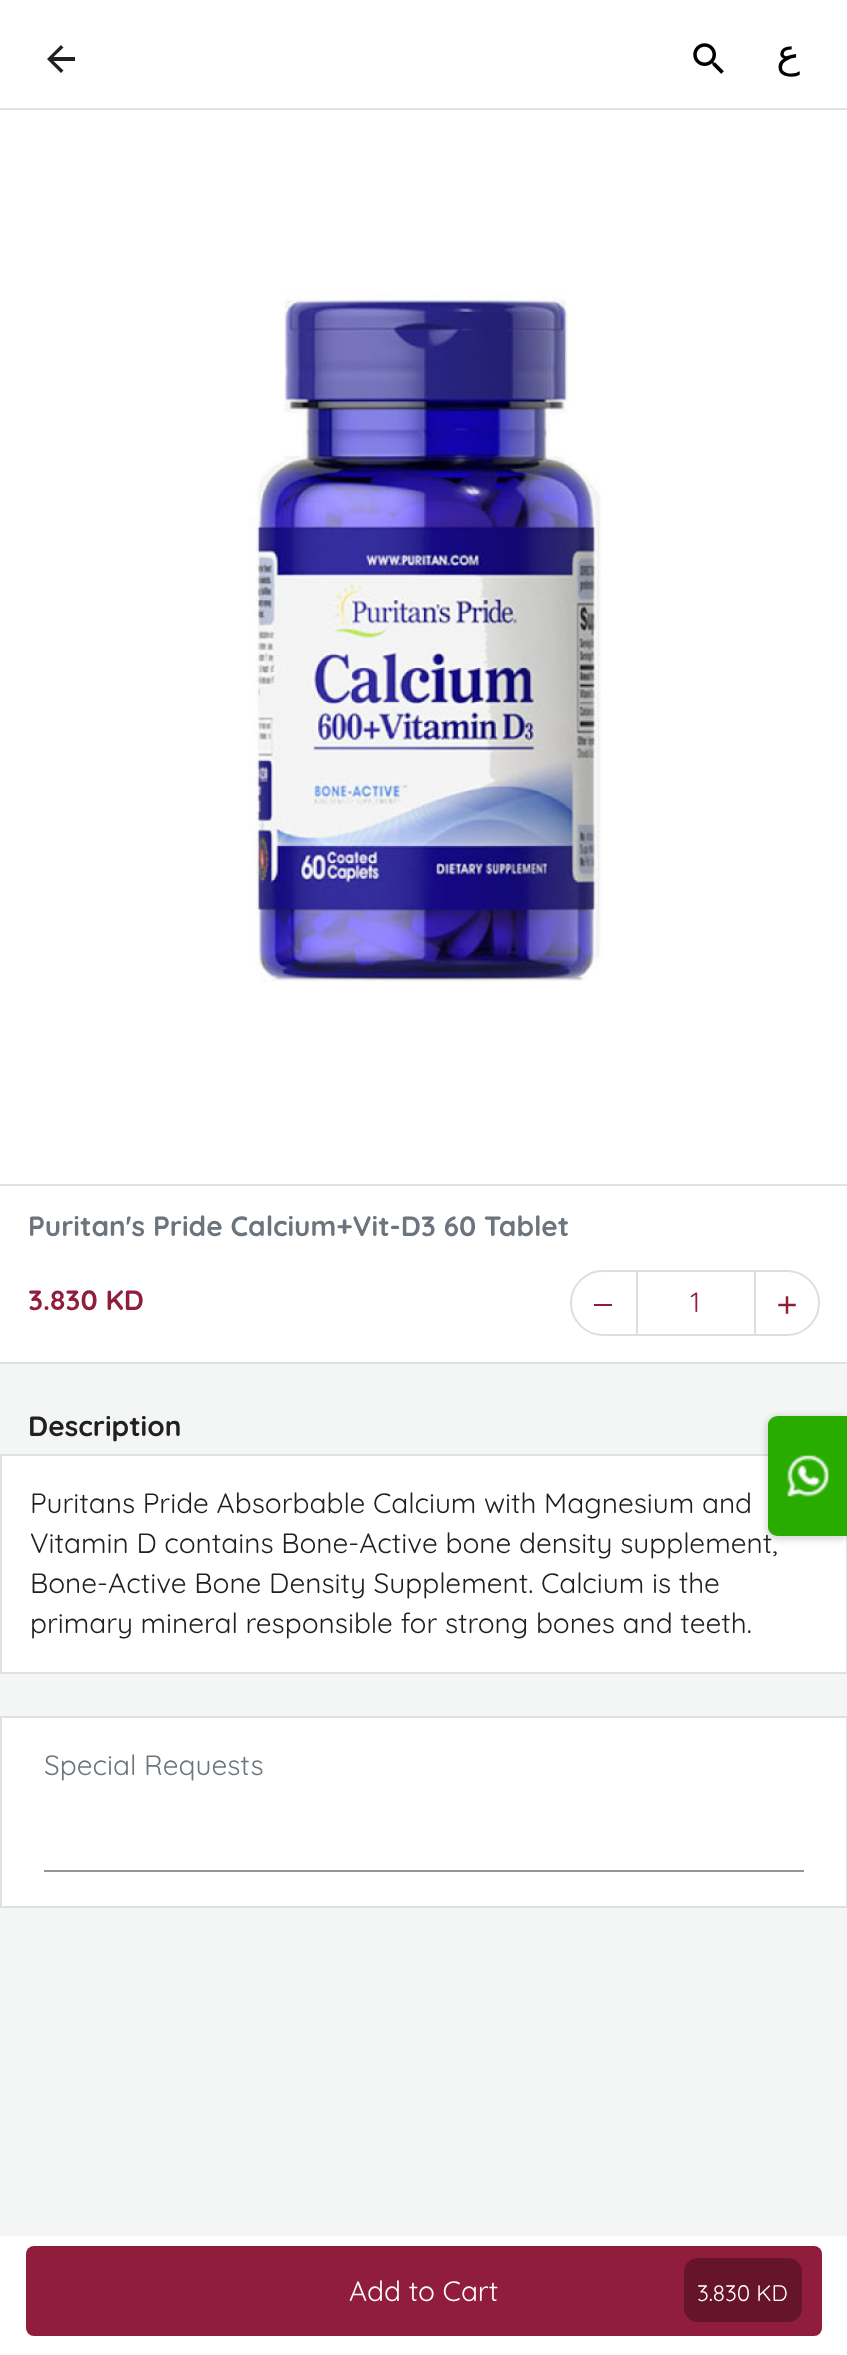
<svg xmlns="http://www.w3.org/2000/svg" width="847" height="2355">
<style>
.a{font:40px DejaVu Sans;direction:rtl;fill:#000}
.b{font:300 28px 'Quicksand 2';fill:#6c757d}
.c{font:300 28px 'Quicksand 2';fill:#911d3c}
.d{font:300 28px Quicksand;fill:#911d3c}
.e{font:300 28px 'Quicksand 2';fill:#202020}
.f{font:300 28px Quicksand;fill:#202020}
.g{font:300 28px Quicksand;fill:#6c757d}
.h{font:300 28px Quicksand;fill:#fff}
.i{font:300 22.5px Quicksand;fill:#fff}
</style>
<rect width="100%" height="100%" fill="#f4f5f5"/>
<path fill="#fff" d="M0 0h847v108H0z"/>
<path fill="#dee2e6" d="M0 108h847v2H0z"/>
<path fill="#212121" d="M75 57h-21.5l10-9.5l-2.5-2.5l-14 14l14 14l2.5-2.5l-10-9.5h21.5z"/>
<image href="1.png" x="693" y="43" width="31" height="31"/>
<path fill="#fff" d="M0 110h847v1074H0z"/>
<image href="2.png" x="248" y="294" width="354" height="688"/>
<path fill="#fff" d="M0 1186h847v176H0z"/>
<path fill="#dee2e6" d="M0 1184h847v2H0z"/>
<path fill="#dee2e6" d="M0 1362h847v2H0z"/>
<rect fill="none" stroke="#dedede" stroke-width="2" x="571" y="1271" width="248" height="64" rx="32"/>
<path fill="#911d3c" d="M594 1304h18v2H594z"/>
<path fill="#dedede" d="M754 1270h2v64H754z"/>
<path fill="#dedede" d="M636 1270h2v64H636z"/>
<image href="3.png" x="778" y="1296" width="18" height="18"/>
<path fill="#fff" stroke="#dee2e6" stroke-width="2" d="M1 1455h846v218H1z"/>
<path fill="#fff" stroke="#dee2e6" stroke-width="2" d="M1 1717h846v190H1z"/>
<path fill="#949494" d="M44 1870h760v2H44z"/>
<path fill="#fff" d="M0 2236h847v119H0z"/>
<rect fill="#911d3c" x="26" y="2246" width="796" height="90" rx="8"/>
<rect fill="#66142a" x="684" y="2258" width="118" height="64" rx="14"/>
<rect fill="#00000026" filter="blur(3px)" x="766" y="1416" width="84" height="124" rx="12"/>
<text class="a" x="800" y="67">ع</text>
<text class="b" x="28" y="1236">Puritan's Pride Calcium+Vit-D3 60 Tablet</text>
<text class="c" x="28" y="1310">3.830 KD</text>
<text class="d" x="690" y="1312">1</text>
<text class="e" x="28" y="1436">Description</text>
<text class="f" x="30" y="1513">Puritans Pride Absorbable Calcium with Magnesium and</text>
<text class="f" x="30" y="1553">Vitamin D contains Bone-Active bone density supplement,</text>
<text class="f" x="30" y="1593">Bone-Active Bone Density Supplement. Calcium is the</text>
<text class="f" x="30" y="1633">primary mineral responsible for strong bones and teeth.</text>
<text class="g" x="44" y="1775">Special Requests</text>
<text class="h" x="349" y="2301">Add to Cart</text>
<text class="i" x="697" y="2301">3.830 KD</text>
<path fill="#29ac00" d="M778 1416h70v120h-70c-5.5 0-10-4.5-10-10v-100c0-5.5 4.5-10 10-10z"/>
<image href="4.png" x="768" y="1417" width="62" height="118"/>
</svg>
